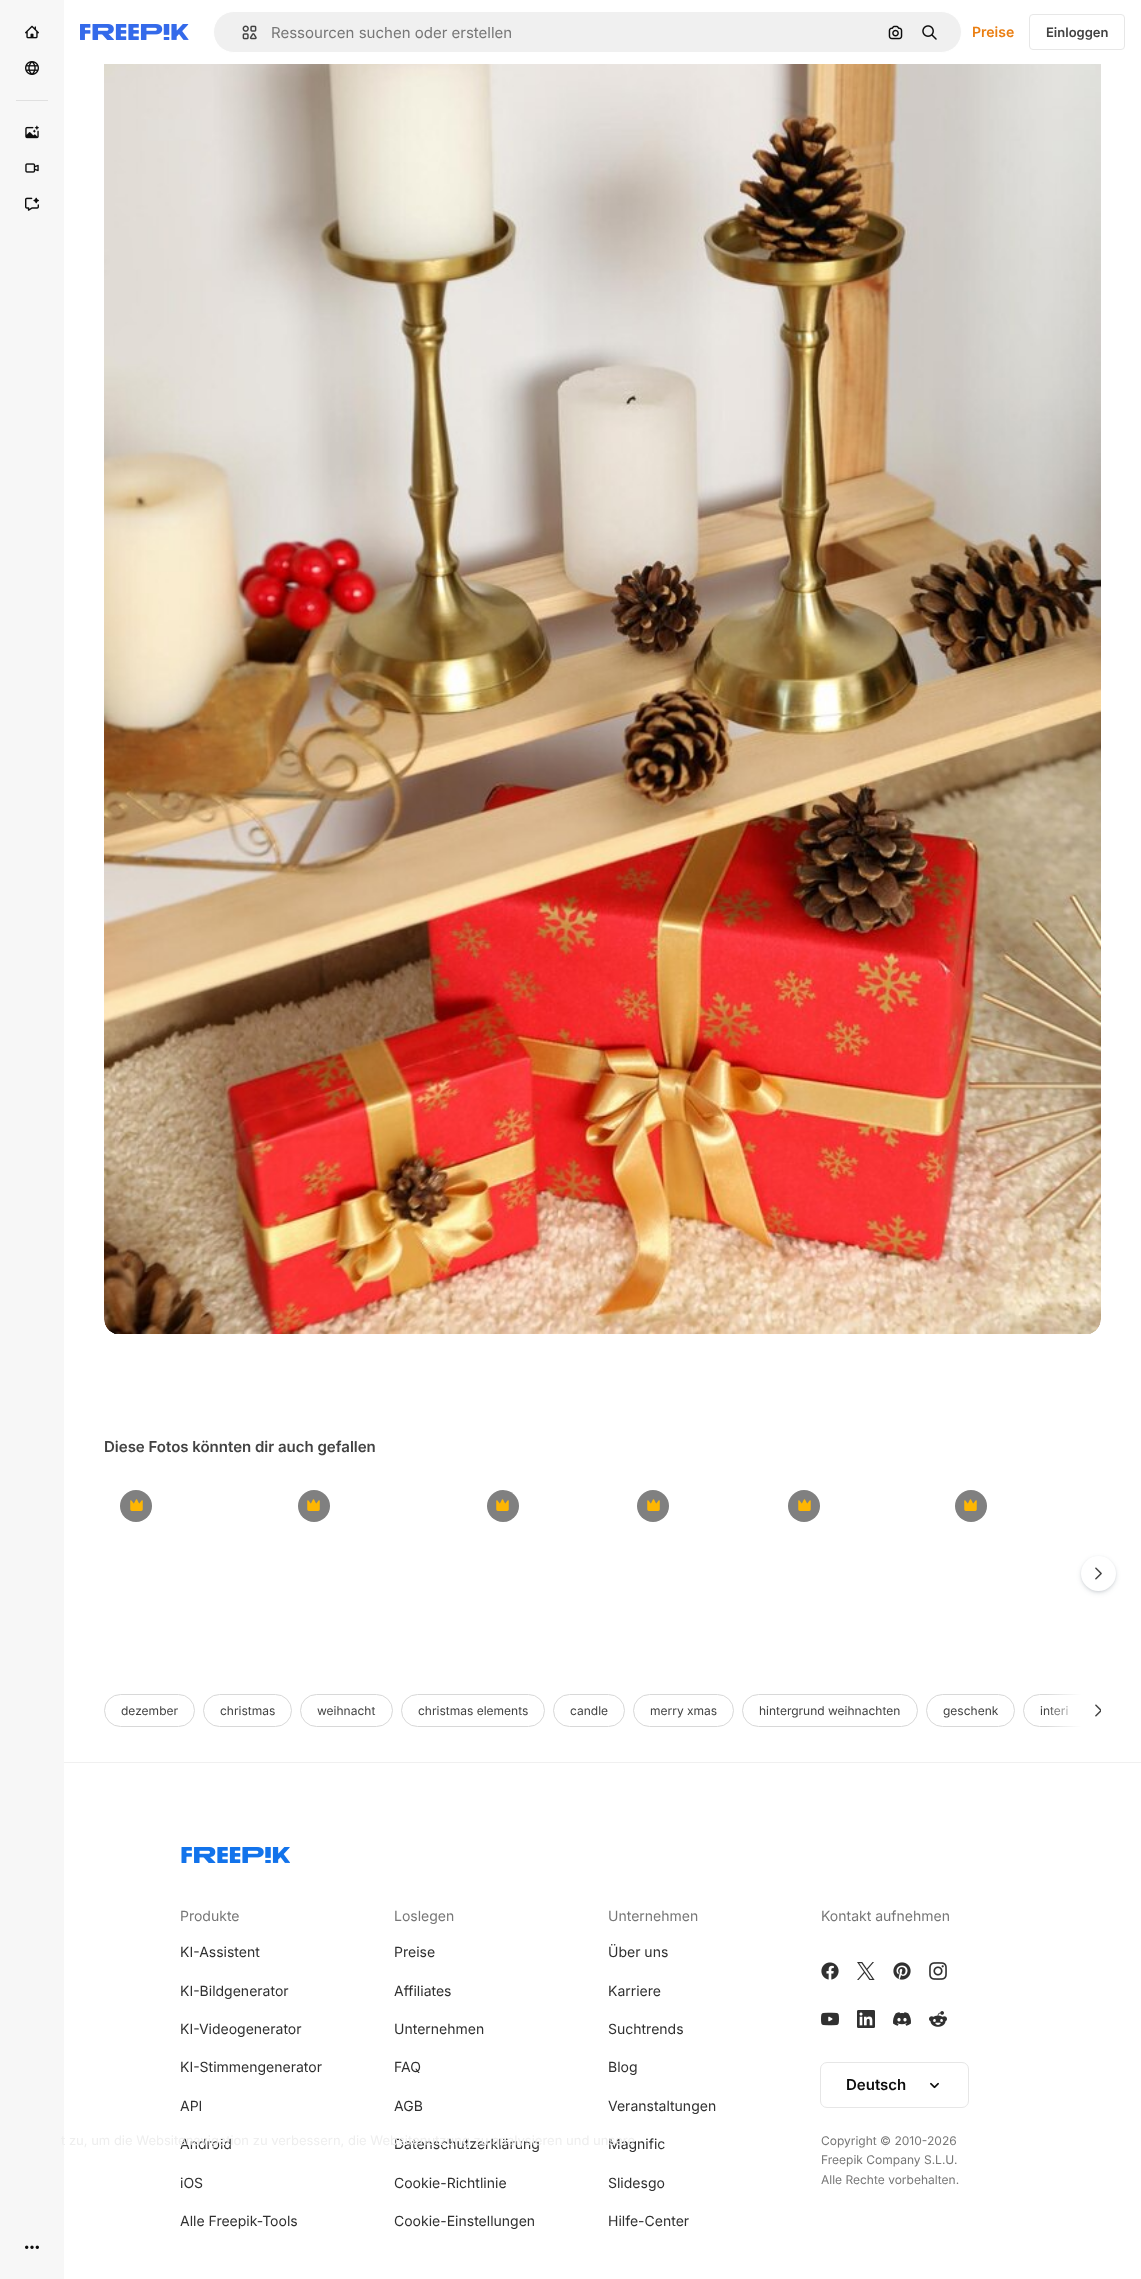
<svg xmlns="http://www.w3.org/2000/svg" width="1141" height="2279">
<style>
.a{font:15px Inter;fill:#777}
.b{font:600 14px Inter;fill:#ea7e11}
.c{font:600 13px Inter;fill:#424242}
.d{font:600 15px Inter;fill:#424242}
.e{font:12px Inter;fill:#424242}
.f{font:14px Inter;fill:#777}
.g{font:14px Inter;fill:#303030}
.h{font:600 15px Inter;fill:#0d0d0d}
.i{font:12px Inter;fill:#777}
.j{font:13px Inter;fill:#eee}
</style>
<defs>
<linearGradient id="g1" gradientUnits="userSpaceOnUse" x1="1081" y1="1711" x2="1046" y2="1711"><stop offset="0" stop-color="#fff"/><stop offset="1" stop-color="#fff" stop-opacity="0"/></linearGradient>
</defs>
<rect width="100%" height="100%" fill="#fff"/>
<path fill="#f7f7f7" d="M0 0h64v2279H0z"/>
<image href="1.png" x="25" y="25" width="14" height="14"/>
<image href="2.png" x="25" y="61" width="14" height="14"/>
<path fill="#e0e0e0" d="M16 100h32v1H16z"/>
<image href="3.png" x="25" y="125" width="14" height="14"/>
<image href="4.png" x="25" y="163" width="14" height="10"/>
<image href="5.png" x="25" y="197" width="14" height="14"/>
<image href="6.png" x="25" y="2245" width="14" height="4"/>
<image href="7.png" x="80" y="24" width="109" height="16"/>
<rect fill="#f0f0f0" stroke="#fff" x="213.5" y="11.5" width="748" height="41" rx="20.5"/>
<image href="8.png" x="242" y="25" width="15" height="15"/>
<image href="9.png" x="888" y="25" width="15" height="15"/>
<image href="10.png" x="922" y="25" width="15" height="15"/>
<rect fill="none" stroke="#e7e7e7" x="1029.5" y="14.5" width="95" height="35" rx="3.5"/>
<image href="11.png" x="104" y="64" width="997" height="1270"/>
<circle fill="#808080" cx="136" cy="1506" r="16"/>
<image href="12.png" x="130" y="1499" width="13" height="12"/>
<circle fill="#808080" cx="314" cy="1506" r="16"/>
<image href="12.png" x="307" y="1499" width="13" height="12"/>
<circle fill="#808080" cx="503" cy="1506" r="16"/>
<image href="12.png" x="496" y="1499" width="13" height="12"/>
<circle fill="#808080" cx="653" cy="1506" r="16"/>
<image href="12.png" x="647" y="1499" width="13" height="12"/>
<circle fill="#808080" cx="804" cy="1506" r="16"/>
<image href="12.png" x="798" y="1499" width="13" height="12"/>
<circle fill="#808080" cx="971" cy="1506" r="16"/>
<image href="12.png" x="964" y="1499" width="13" height="12"/>
<rect fill="#37495726" filter="blur(2.5px)" x="1081" y="1558" width="35" height="35" rx="17.5"/>
<rect fill="#3749571a" filter="blur(1px)" x="1081" y="1557" width="35" height="35" rx="17.5"/>
<circle fill="#fff" cx="1098.5" cy="1573.5" r="17.5"/>
<image href="13.png" x="1095" y="1567" width="7" height="13"/>
<rect fill="none" stroke="#d8d8d8" x="104.5" y="1694.5" width="90" height="32" rx="16"/>
<rect fill="none" stroke="#d8d8d8" x="203.5" y="1694.5" width="88" height="32" rx="16"/>
<rect fill="none" stroke="#d8d8d8" x="300.5" y="1694.5" width="92" height="32" rx="16"/>
<rect fill="none" stroke="#d8d8d8" x="401.5" y="1694.5" width="143" height="32" rx="16"/>
<rect fill="none" stroke="#d8d8d8" x="553.5" y="1694.5" width="71" height="32" rx="16"/>
<rect fill="none" stroke="#d8d8d8" x="633.5" y="1694.5" width="100" height="32" rx="16"/>
<rect fill="none" stroke="#d8d8d8" x="742.5" y="1694.5" width="175" height="32" rx="16"/>
<rect fill="none" stroke="#d8d8d8" x="926.5" y="1694.5" width="88" height="32" rx="16"/>
<rect fill="none" stroke="#d8d8d8" x="1023.5" y="1694.5" width="73" height="32" rx="16"/>
<path fill="#fff" d="M1081 1694h16v33H1081z"/>
<image href="14.png" x="1095" y="1704" width="6" height="13"/>
<path fill="#f0f0f0" d="M64 1762h1077v1H64z"/>
<image href="15.png" x="181" y="1847" width="109" height="16"/>
<image href="16.png" x="821" y="1962" width="18" height="18"/>
<image href="17.png" x="857" y="1962" width="18" height="18"/>
<image href="18.png" x="893" y="1962" width="18" height="18"/>
<image href="19.png" x="929" y="1962" width="18" height="18"/>
<image href="20.png" x="821" y="2012" width="18" height="14"/>
<image href="21.png" x="857" y="2010" width="18" height="18"/>
<image href="22.png" x="893" y="2012" width="18" height="14"/>
<image href="23.png" x="929" y="2011" width="18" height="16"/>
<rect fill="none" stroke="#e6e6e6" x="820.5" y="2062.5" width="148" height="45" rx="6.5"/>
<image href="24.png" x="930" y="2082" width="9" height="7"/>
<text class="a" x="271" y="38">Ressourcen suchen oder erstellen</text>
<text class="b" x="972" y="37">Preise</text>
<text class="c" x="1046" y="37">Einloggen</text>
<text class="d" x="104" y="1452">Diese Fotos könnten dir auch gefallen</text>
<text class="e" x="121" y="1715">dezember</text>
<text class="e" x="220" y="1715">christmas</text>
<text class="e" x="317" y="1715">weihnacht</text>
<text class="e" x="418" y="1715">christmas elements</text>
<text class="e" x="570" y="1715">candle</text>
<text class="e" x="650" y="1715">merry xmas</text>
<text class="e" x="759" y="1715">hintergrund weihnachten</text>
<text class="e" x="943" y="1715">geschenk</text>
<text class="e" x="1040" y="1715">interi</text>
<path fill="url(#g1)" d="M1047 1694h34v33H1047z"/>
<text class="f" x="180" y="1921">Produkte</text>
<text class="g" x="180" y="1957">KI-Assistent</text>
<text class="g" x="180" y="1996">KI-Bildgenerator</text>
<text class="g" x="180" y="2034">KI-Videogenerator</text>
<text class="g" x="180" y="2072">KI-Stimmengenerator</text>
<text class="g" x="180" y="2111">API</text>
<text class="g" x="180" y="2149">Android</text>
<text class="g" x="180" y="2188">iOS</text>
<text class="g" x="180" y="2226">Alle Freepik-Tools</text>
<text class="f" x="394" y="1921">Loslegen</text>
<text class="g" x="394" y="1957">Preise</text>
<text class="g" x="394" y="1996">Affiliates</text>
<text class="g" x="394" y="2034">Unternehmen</text>
<text class="g" x="394" y="2072">FAQ</text>
<text class="g" x="394" y="2111">AGB</text>
<text class="g" x="394" y="2149">Datenschutzerklärung</text>
<text class="g" x="394" y="2188">Cookie-Richtlinie</text>
<text class="g" x="394" y="2226">Cookie-Einstellungen</text>
<text class="f" x="608" y="1921">Unternehmen</text>
<text class="g" x="608" y="1957">Über uns</text>
<text class="g" x="608" y="1996">Karriere</text>
<text class="g" x="608" y="2034">Suchtrends</text>
<text class="g" x="608" y="2072">Blog</text>
<text class="g" x="608" y="2111">Veranstaltungen</text>
<text class="g" x="608" y="2149">Magnific</text>
<text class="g" x="608" y="2188">Slidesgo</text>
<text class="g" x="608" y="2226">Hilfe-Center</text>
<text class="f" x="821" y="1921">Kontakt aufnehmen</text>
<text class="h" x="846" y="2090">Deutsch</text>
<text class="i" x="821" y="2145">Copyright © 2010-</text>
<text class="i" x="927" y="2145">2026</text>
<text class="i" x="821" y="2164">Freepik Company S.L.U.</text>
<text class="i" x="821" y="2184">Alle Rechte vorbehalten.</text>
<text class="j" x="61" y="2145">t zu, um die Websitenavigation zu verbessern, die Websitenutzung zu analysieren und unsere</text>
</svg>
